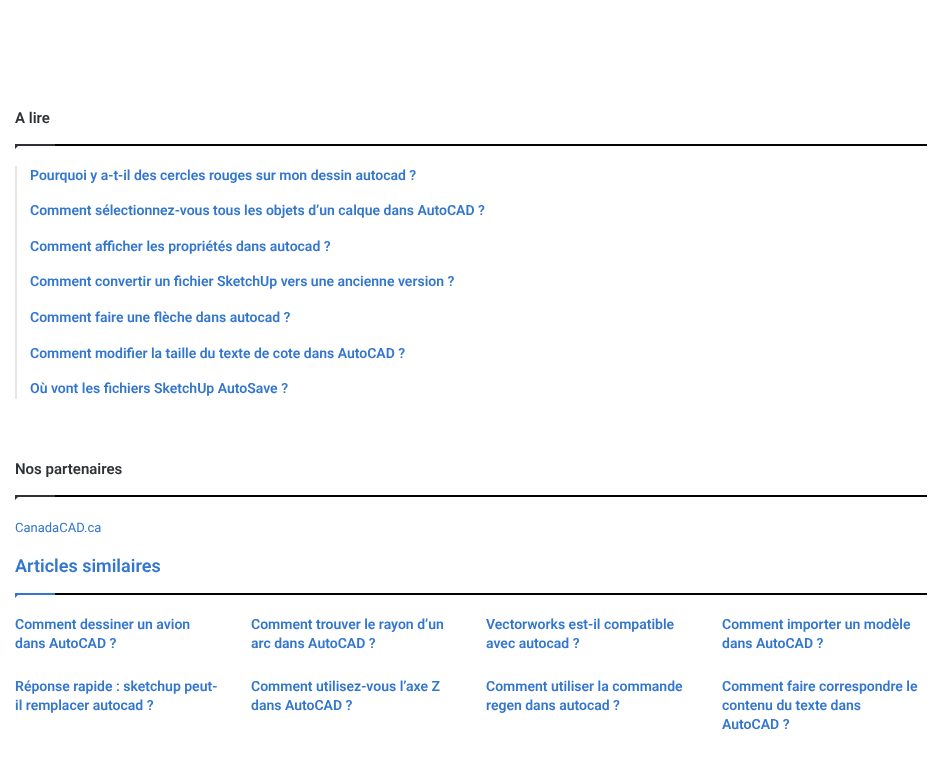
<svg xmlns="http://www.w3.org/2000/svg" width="942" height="768">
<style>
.a{font:600 15px Roboto;fill:#2e3136}
.b{font:600 14px Roboto;fill:#3376ce}
.c{font:13px Roboto;fill:#3376ce}
.d{font:600 18px Roboto;fill:#3376ce}
</style>
<rect width="100%" height="100%" fill="#fff"/>
<path fill="#030303" d="M55 144h872v2H55z"/>
<path fill="#2e3136" d="M15 144h5l-5 5z"/>
<path fill="#2e3136" d="M15 144h40v2H15z"/>
<path fill="#e6e6e6" d="M15 166h2v233H15z"/>
<path fill="#030303" d="M55 495h872v2H55z"/>
<path fill="#2e3136" d="M15 495h5l-5 5z"/>
<path fill="#2e3136" d="M15 495h40v2H15z"/>
<path fill="#030303" d="M55 593h872v2H55z"/>
<path fill="#3376ce" d="M15 593h5l-5 5z"/>
<path fill="#3376ce" d="M15 593h40v2H15z"/>
<text class="a" x="15" y="123">A lire</text>
<text class="b" x="30" y="180">Pourquoi y a-t-il des cercles rouges sur mon dessin autocad ?</text>
<text class="b" x="30" y="215">Comment sélectionnez-vous tous les objets d’un calque dans AutoCAD ?</text>
<text class="b" x="30" y="251">Comment afficher les propriétés dans autocad ?</text>
<text class="b" x="30" y="286">Comment convertir un fichier SketchUp vers une ancienne version ?</text>
<text class="b" x="30" y="322">Comment faire une flèche dans autocad ?</text>
<text class="b" x="30" y="358">Comment modifier la taille du texte de cote dans AutoCAD ?</text>
<text class="b" x="30" y="393">Où vont les fichiers SketchUp AutoSave ?</text>
<text class="a" x="15" y="474">Nos partenaires</text>
<text class="c" x="15" y="532">CanadaCAD.ca</text>
<text class="d" x="15" y="572">Articles similaires</text>
<text class="b" x="15" y="629">Comment dessiner un avion</text>
<text class="b" x="15" y="648">dans AutoCAD ?</text>
<text class="b" x="251" y="629">Comment trouver le rayon d’un</text>
<text class="b" x="251" y="648">arc dans AutoCAD ?</text>
<text class="b" x="486" y="629">Vectorworks est-il compatible</text>
<text class="b" x="486" y="648">avec autocad ?</text>
<text class="b" x="722" y="629">Comment importer un modèle</text>
<text class="b" x="722" y="648">dans AutoCAD ?</text>
<text class="b" x="15" y="691">Réponse rapide : sketchup peut-</text>
<text class="b" x="15" y="710">il remplacer autocad ?</text>
<text class="b" x="251" y="691">Comment utilisez-vous l’axe Z</text>
<text class="b" x="251" y="710">dans AutoCAD ?</text>
<text class="b" x="486" y="691">Comment utiliser la commande</text>
<text class="b" x="486" y="710">regen dans autocad ?</text>
<text class="b" x="722" y="691">Comment faire correspondre le</text>
<text class="b" x="722" y="710">contenu du texte dans</text>
<text class="b" x="722" y="729">AutoCAD ?</text>
</svg>
